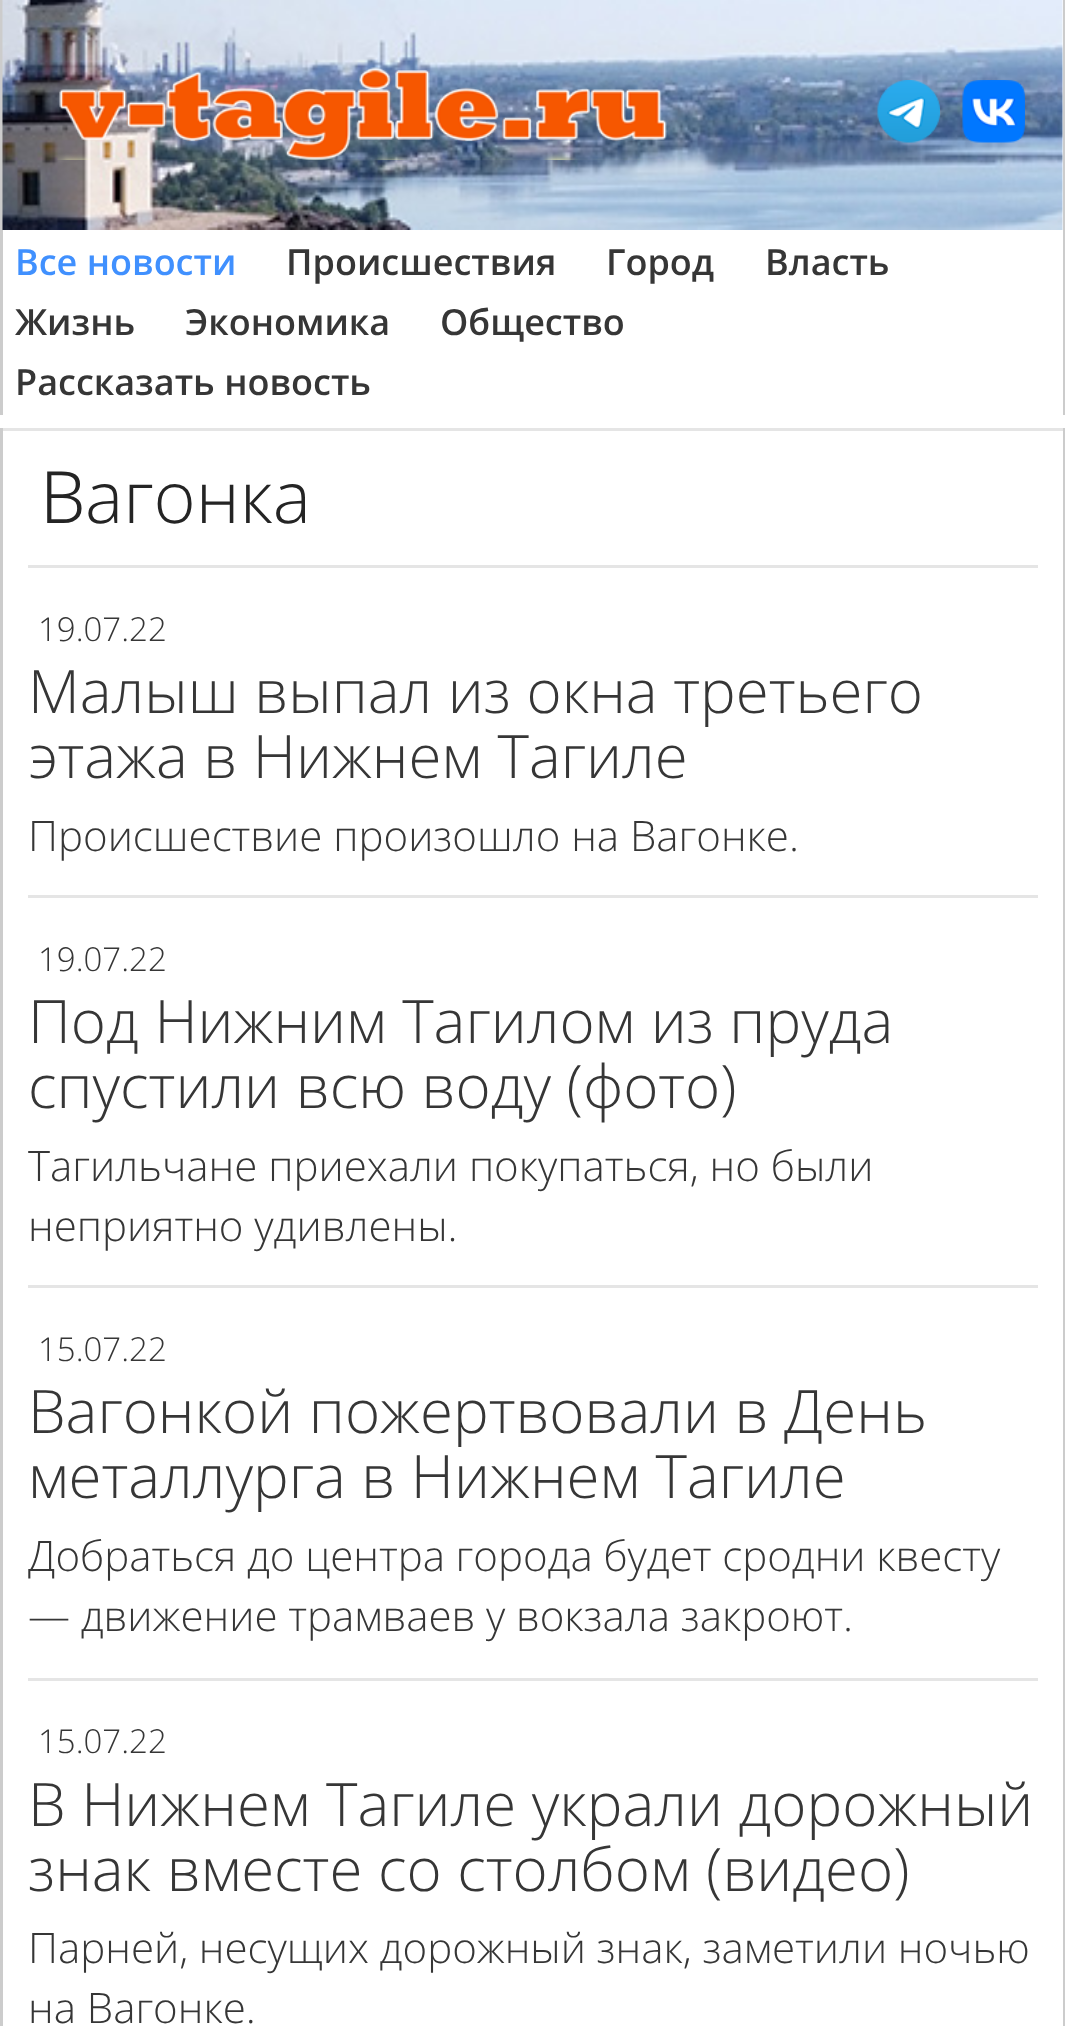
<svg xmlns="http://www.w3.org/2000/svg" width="1065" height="2026">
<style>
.a{font:600 36px Open Sans;fill:#4090fe}
.b{font:600 36px Open Sans;fill:#363636}
.c{font:300 72px Noto Sans;fill:#242424}
.d{font:300 72px Open Sans;fill:#242424}
.e{font:300 33px Open Sans;fill:#363636}
.f{font:300 60px Open Sans;fill:#363636}
.g{font:300 42px Open Sans;fill:#363636}
</style>
<rect width="100%" height="100%" fill="#fff"/>
<path fill="#ccc" d="M1063 0h2v415H1063z"/>
<path fill="#ccc" d="M0 0h3v415H0z"/>
<image href="1.png" x="2" y="0" width="1061" height="230"/>
<image href="2.png" x="57" y="67" width="610" height="93"/>
<image href="3.png" x="877" y="80" width="63" height="63"/>
<image href="4.png" x="962" y="80" width="63" height="63"/>
<path fill="#ccc" d="M1063 428h2v1598H1063z"/>
<path fill="#ccc" d="M0 428h3v1598H0z"/>
<path fill="#e5e5e5" d="M3 428h1060v3H3z"/>
<path fill="#e5e5e5" d="M28 565h1010v3H28z"/>
<path fill="#e5e5e5" d="M28 895h1010v3H28z"/>
<path fill="#e5e5e5" d="M28 1285h1010v3H28z"/>
<path fill="#e5e5e5" d="M28 1678h1010v3H28z"/>
<text class="a" x="15" y="275">Все новости</text>
<text class="b" x="286" y="275">Происшествия</text>
<text class="b" x="606" y="275">Город</text>
<text class="b" x="765" y="275">Власть</text>
<text class="b" x="15" y="335">Жизнь</text>
<text class="b" x="185" y="335">Экономика</text>
<text class="b" x="440" y="335">Общество</text>
<text class="b" x="15" y="395">Рассказать новость</text>
<text class="c" x="40" y="523">В</text>
<text class="d" x="85" y="523">агонка</text>
<text class="e" x="38" y="641">19.07.22</text>
<text class="f" x="28" y="713">Малыш выпал из окна третьего</text>
<text class="f" x="28" y="778">этажа в Нижнем Тагиле</text>
<text class="g" x="28" y="851">Происшествие произошло на Вагонке.</text>
<text class="e" x="38" y="971">19.07.22</text>
<text class="f" x="28" y="1043">Под Нижним Тагилом из пруда</text>
<text class="f" x="28" y="1108">спустили всю воду (фото)</text>
<text class="g" x="28" y="1181">Тагильчане приехали покупаться, но были</text>
<text class="g" x="28" y="1241">неприятно удивлены.</text>
<text class="e" x="38" y="1361">15.07.22</text>
<text class="f" x="28" y="1433">Вагонкой пожертвовали в День</text>
<text class="f" x="28" y="1498">металлурга в Нижнем Тагиле</text>
<text class="g" x="28" y="1571" word-spacing="-0.25">Добраться до центра города будет сродни квесту</text>
<text class="g" x="28" y="1631" word-spacing="-0.25">— движение трамваев у вокзала закроют.</text>
<text class="e" x="38" y="1753">15.07.22</text>
<text class="f" x="28" y="1826">В Нижнем Тагиле украли дорожный</text>
<text class="f" x="28" y="1891">знак вместе со столбом (видео)</text>
<text class="g" x="28" y="1963" word-spacing="-0.25">Парней, несущих дорожный знак, заметили ночью</text>
<text class="g" x="28" y="2023">на Вагонке.</text>
</svg>
